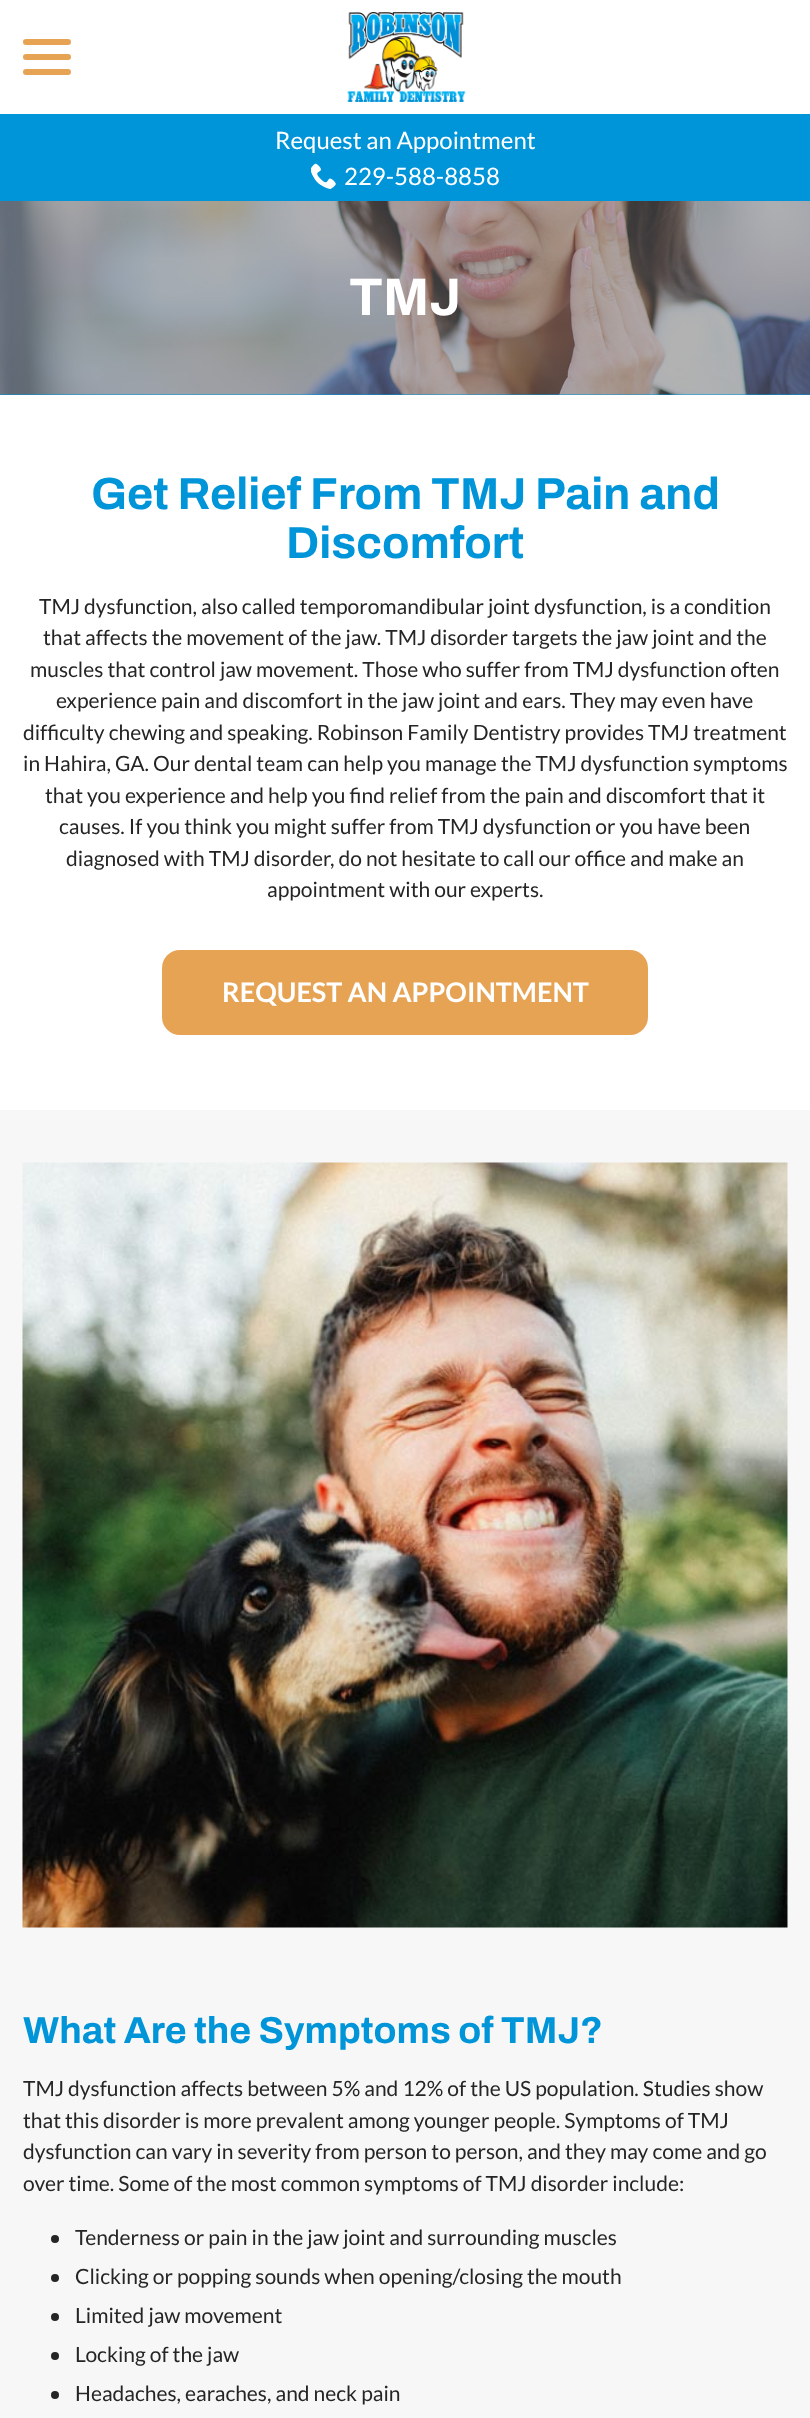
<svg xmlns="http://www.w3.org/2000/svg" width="810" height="2418">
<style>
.a{font:24px Lato;fill:#fff}
.b{font:bold 53px Archivo;fill:#fff}
.c{font:bold 45px Archivo;fill:#0094d9}
.d{font:21px Lato;fill:#252525}
.e{font:bold 27px Lato;fill:#fff}
.f{font:bold 37.5px Archivo;fill:#0094d9}
</style>
<rect width="100%" height="100%" fill="#fff"/>
<rect fill="#e7a354" x="23" y="54" width="48" height="6" rx="3"/>
<rect fill="#e7a354" x="23" y="39" width="48" height="6" rx="3"/>
<rect fill="#e7a354" x="23" y="69" width="48" height="6" rx="3"/>
<image href="1.png" x="347" y="12" width="119" height="90"/>
<path fill="#0094d9" d="M0 114h810v87H0z"/>
<image href="2.png" x="311" y="163" width="25" height="26"/>
<path fill="#0094d9" d="M0 394h810v1H0z"/>
<image href="3.png" x="0" y="201" width="810" height="194"/>
<rect fill="#e7a354" x="162" y="950" width="486" height="85" rx="18"/>
<path fill="#f7f7f7" d="M0 1110h810v1308H0z"/>
<image href="4.png" x="22" y="1162" width="766" height="766"/>
<circle fill="#252525" cx="55" cy="2239" r="4"/>
<circle fill="#252525" cx="55" cy="2278" r="4"/>
<circle fill="#252525" cx="55" cy="2317" r="4"/>
<circle fill="#252525" cx="55" cy="2356" r="4"/>
<circle fill="#252525" cx="55" cy="2395" r="4"/>
<text class="a" x="275" y="149">Request an Appointment</text>
<text class="a" x="344" y="185">229-588-8858</text>
<text class="b" x="349" y="315">TMJ</text>
<text class="c" x="91" y="509">Get Relief From TMJ Pain and</text>
<text class="c" x="286" y="558">Discomfort</text>
<text class="d" x="39" y="614">TMJ dysfunction, also called temporomandibular joint dysfunction, is a condition</text>
<text class="d" x="43" y="645">that affects the movement of the jaw. TMJ disorder targets the jaw joint and the</text>
<text class="d" x="30" y="677">muscles that control jaw movement. Those who suffer from TMJ dysfunction often</text>
<text class="d" x="56" y="708">experience pain and discomfort in the jaw joint and ears. They may even have</text>
<text class="d" x="23" y="740">difficulty chewing and speaking. Robinson Family Dentistry provides TMJ treatment</text>
<text class="d" x="23" y="771">in Hahira, GA. Our dental team can help you manage the TMJ dysfunction symptoms</text>
<text class="d" x="45" y="803">that you experience and help you find relief from the pain and discomfort that it</text>
<text class="d" x="59" y="834">causes. If you think you might suffer from TMJ dysfunction or you have been</text>
<text class="d" x="66" y="866">diagnosed with TMJ disorder, do not hesitate to call our office and make an</text>
<text class="d" x="267" y="897">appointment with our experts.</text>
<text class="e" x="222" y="1002">REQUEST AN APPOINTMENT</text>
<text class="f" x="23" y="2043">What Are the Symptoms of TMJ?</text>
<text class="d" x="23" y="2096">TMJ dysfunction affects between 5% and 12% of the US population. Studies show</text>
<text class="d" x="23" y="2128">that this disorder is more prevalent among younger people. Symptoms of TMJ</text>
<text class="d" x="23" y="2159">dysfunction can vary in severity from person to person, and they may come and go</text>
<text class="d" x="23" y="2191">over time. Some of the most common symptoms of TMJ disorder include:</text>
<text class="d" x="75" y="2245">Tenderness or pain in the jaw joint and surrounding muscles</text>
<text class="d" x="75" y="2284">Clicking or popping sounds when opening/closing the mouth</text>
<text class="d" x="75" y="2323">Limited jaw movement</text>
<text class="d" x="75" y="2362">Locking of the jaw</text>
<text class="d" x="75" y="2401">Headaches, earaches, and neck pain</text>
</svg>
